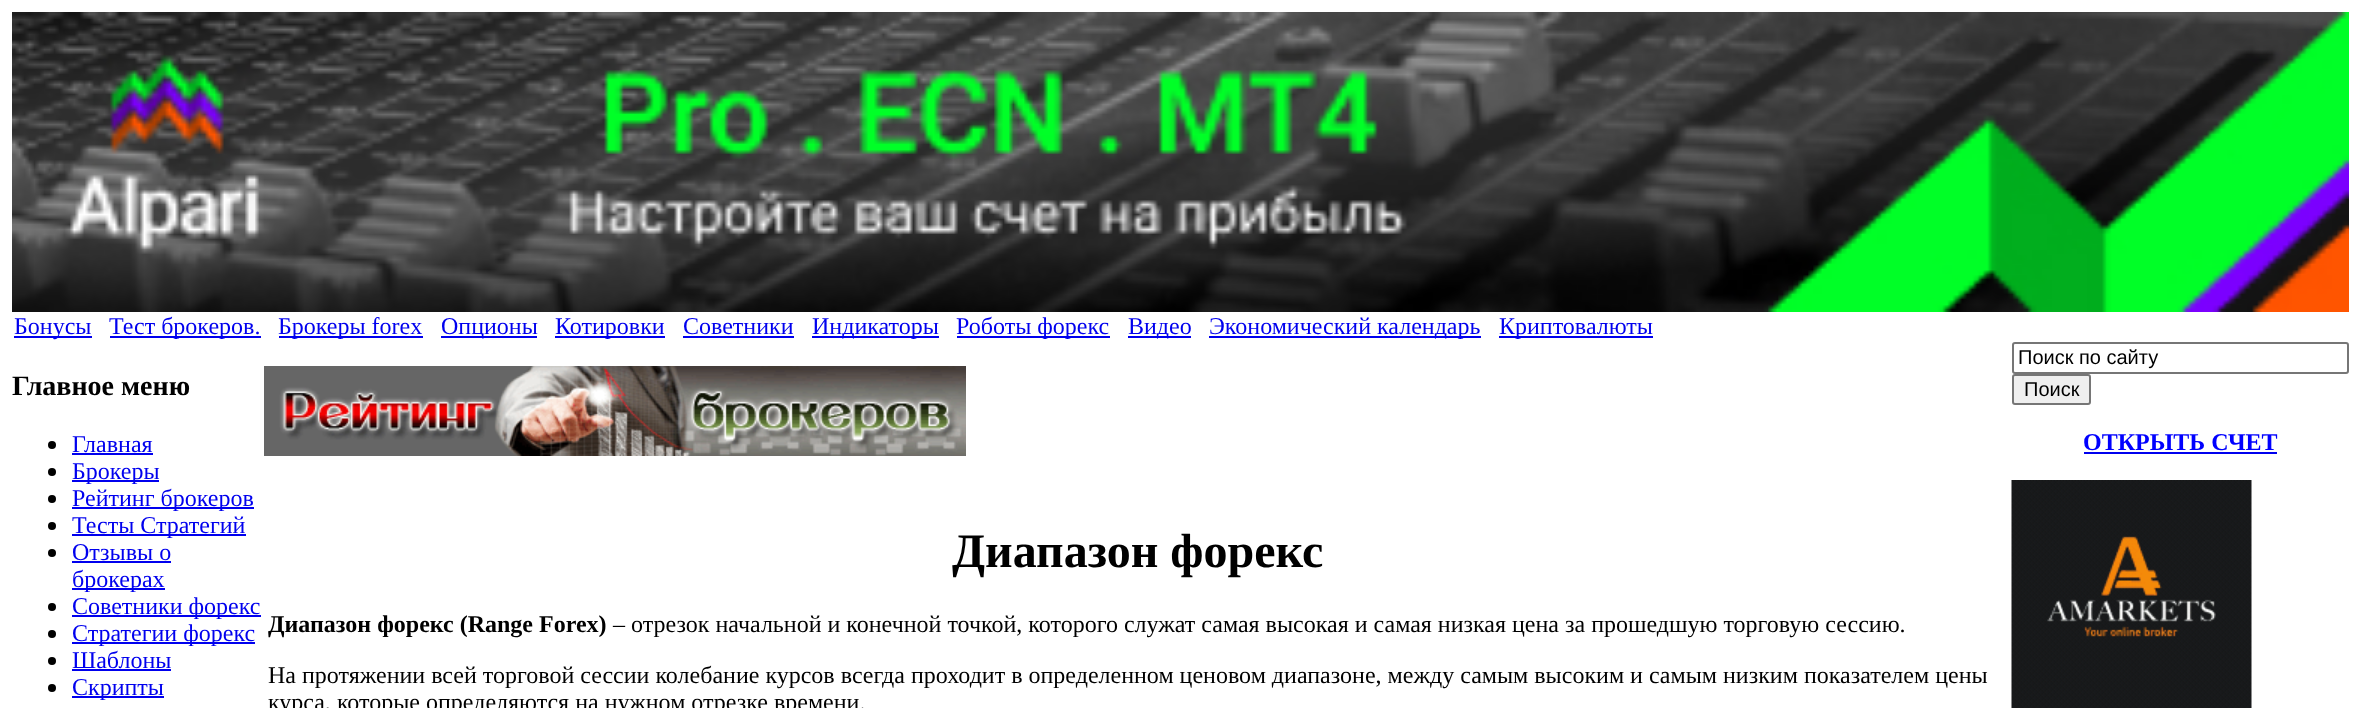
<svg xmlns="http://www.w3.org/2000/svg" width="2360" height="708">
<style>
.a{font:24px Liberation Serif;fill:#00e}
.b{font:bold 28px Liberation Serif;fill:#000}
.c{font:bold 48px Liberation Serif;fill:#000}
.d{font:bold 24px Liberation Serif;fill:#000}
.e{font:24px Liberation Serif;fill:#000}
.f{font:20px Liberation Sans;fill:#000}
.g{font:bold 24px Liberation Serif;fill:#00f}
</style>
<rect width="100%" height="100%" fill="#fff"/>
<image href="1.png" x="12" y="12" width="2337" height="300"/>
<path fill="#00e" d="M14 336h78v2H14z"/>
<path fill="#00e" d="M110 336h151v2H110z"/>
<path fill="#00e" d="M279 336h144v2H279z"/>
<path fill="#00e" d="M441 336h96v2H441z"/>
<path fill="#00e" d="M555 336h110v2H555z"/>
<path fill="#00e" d="M683 336h111v2H683z"/>
<path fill="#00e" d="M812 336h127v2H812z"/>
<path fill="#00e" d="M957 336h153v2H957z"/>
<path fill="#00e" d="M1128 336h63v2H1128z"/>
<path fill="#00e" d="M1209 336h272v2H1209z"/>
<path fill="#00e" d="M1499 336h154v2H1499z"/>
<circle fill="#000" cx="52" cy="445" r="4"/>
<path fill="#00e" d="M72 453h81v2H72z"/>
<circle fill="#000" cx="52" cy="472" r="4"/>
<path fill="#00e" d="M72 480h87v2H72z"/>
<circle fill="#000" cx="52" cy="499" r="4"/>
<path fill="#00e" d="M72 507h182v2H72z"/>
<circle fill="#000" cx="52" cy="526" r="4"/>
<path fill="#00e" d="M72 534h174v2H72z"/>
<circle fill="#000" cx="52" cy="553" r="4"/>
<path fill="#00e" d="M72 561h99v2H72z"/>
<path fill="#00e" d="M72 588h93v2H72z"/>
<circle fill="#000" cx="52" cy="607" r="4"/>
<path fill="#00e" d="M72 615h189v2H72z"/>
<circle fill="#000" cx="52" cy="634" r="4"/>
<path fill="#00e" d="M72 642h183v2H72z"/>
<circle fill="#000" cx="52" cy="661" r="4"/>
<path fill="#00e" d="M72 669h99v2H72z"/>
<circle fill="#000" cx="52" cy="688" r="4"/>
<path fill="#00e" d="M72 696h92v2H72z"/>
<image href="2.png" x="264" y="366" width="702" height="90"/>
<rect fill="none" stroke="#767676" stroke-width="2" x="2013" y="343" width="335" height="30" rx="2"/>
<rect fill="#efefef" stroke="#767676" stroke-width="2" x="2013" y="375" width="77" height="29" rx="2"/>
<path fill="#00e" d="M2084 452h193v2H2084z"/>
<image href="3.png" x="2011" y="480" width="241" height="228"/>
<text class="a" x="14" y="334">Бонусы</text>
<text class="a" x="109" y="334">Тест брокеров.</text>
<text class="a" x="278" y="334">Брокеры forex</text>
<text class="a" x="441" y="334">Опционы</text>
<text class="a" x="555" y="334">Котировки</text>
<text class="a" x="683" y="334">Советники</text>
<text class="a" x="812" y="334">Индикаторы</text>
<text class="a" x="956" y="334">Роботы форекс</text>
<text class="a" x="1128" y="334">Видео</text>
<text class="a" x="1209" y="334">Экономический календарь</text>
<text class="a" x="1499" y="334">Криптовалюты</text>
<text class="b" x="12" y="395">Главное меню</text>
<text class="a" x="72" y="452">Главная</text>
<text class="a" x="72" y="479">Брокеры</text>
<text class="a" x="72" y="506">Рейтинг брокеров</text>
<text class="a" x="72" y="533">Тесты Стратегий</text>
<text class="a" x="72" y="560">Отзывы о</text>
<text class="a" x="72" y="587">брокерах</text>
<text class="a" x="72" y="614">Советники форекс</text>
<text class="a" x="72" y="641">Стратегии форекс</text>
<text class="a" x="72" y="668">Шаблоны</text>
<text class="a" x="72" y="695">Скрипты</text>
<text class="c" x="952" y="567">Диапазон форекс</text>
<text class="d" x="268" y="632">Диапазон форекс (Range Forex)</text>
<text class="e" x="613" y="632">– отрезок начальной и конечной точкой, которого служат самая высокая и самая низкая цена за прошедшую торговую сессию.</text>
<text class="e" x="268" y="683">На протяжении всей торговой сессии колебание курсов всегда проходит в определенном ценовом диапазоне, между самым высоким и самым низким показателем цены</text>
<text class="e" x="268" y="710">курса, которые определяются на нужном отрезке времени.</text>
<text class="f" x="2018" y="364">Поиск по сайту</text>
<text class="f" x="2024" y="396">Поиск</text>
<text class="g" x="2083" y="450">ОТКРЫТЬ СЧЕТ</text>
</svg>
